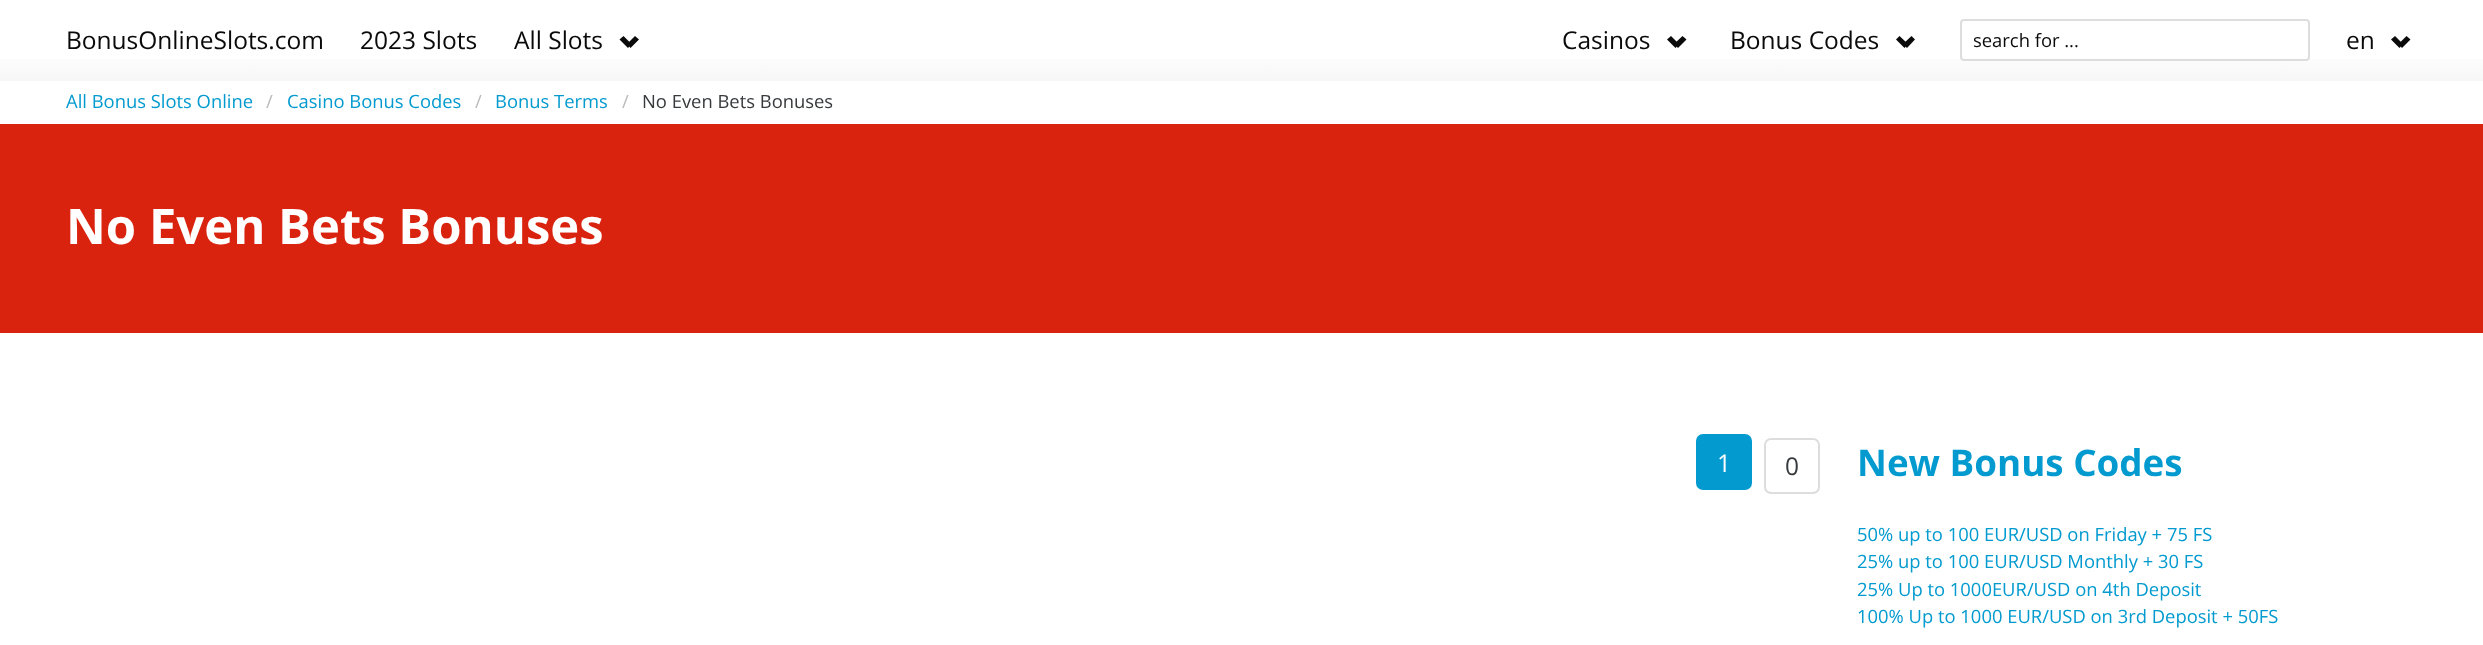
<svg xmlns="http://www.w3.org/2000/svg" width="2483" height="645">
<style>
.a{font:24.5px Open Sans;fill:#0a0a0a}
.b{font:18.4px Open Sans;fill:#0a0a0a}
.c{font:18.4px Open Sans;fill:#029acf}
.d{font:18.4px Open Sans;fill:#bbb}
.e{font:18.4px Open Sans;fill:#373a3c}
.f{font:bold 49px Open Sans;fill:#fff}
.g{font:24.5px Open Sans;fill:#fff}
.h{font:24.5px Open Sans;fill:#373a3c}
.i{font:bold 36.75px Open Sans;fill:#029acf}
</style>
<defs>
<linearGradient id="g1" gradientUnits="userSpaceOnUse" x1="1242" y1="0" x2="1242" y2="81"><stop offset="0" stop-color="#fff"/><stop offset="0.6" stop-color="#fff"/><stop offset="1" stop-color="#f7f7f7"/></linearGradient>
</defs>
<rect width="100%" height="100%" fill="#fff"/>
<path fill="url(#g1)" d="M0 59h2483v22H0z"/>
<path fill="#0a0a0a" d="M627 44l8-8l4 3.5l-8.5 8.5z"/>
<path fill="#0a0a0a" d="M619.5 39.5l4-3.5l8 8l-3.5 4z"/>
<path fill="#0a0a0a" d="M1674 44l8.5-8l4 3.5l-8.5 8.5z"/>
<path fill="#0a0a0a" d="M1667 39.5l4-3.5l8 8l-3.5 4z"/>
<path fill="#0a0a0a" d="M1903 44l8.5-8l3.5 3.5l-8 8.5z"/>
<path fill="#0a0a0a" d="M1896 39.5l3.5-3.5l8.5 8l-3.5 4z"/>
<rect fill="#fff" stroke="#ddd" stroke-width="2" x="1961" y="20" width="348" height="40" rx="3"/>
<path fill="#0a0a0a" d="M2398.5 44l8-8l4 3.5l-8.5 8.5z"/>
<path fill="#0a0a0a" d="M2391 39.5l4-3.5l8 8l-3.5 4z"/>
<path fill="#d9230f" d="M0 124h2483v209H0z"/>
<rect fill="#029acf" stroke="#029acf" stroke-width="2" x="1697" y="435" width="54" height="54" rx="6"/>
<rect fill="none" stroke="#ddd" stroke-width="2" x="1765" y="439" width="54" height="54" rx="6"/>
<text class="a" x="66" y="49">BonusOnlineSlots.com</text>
<text class="a" x="360" y="49">2023 Slots</text>
<text class="a" x="514" y="49">All Slots</text>
<text class="a" x="1562" y="49">Casinos</text>
<text class="a" x="1730" y="49">Bonus Codes</text>
<text class="b" x="1973" y="47">search for ...</text>
<text class="a" x="2346" y="49">en</text>
<text class="c" x="66" y="108">All Bonus Slots Online</text>
<text class="d" x="266" y="108">/</text>
<text class="c" x="287" y="108">Casino Bonus Codes</text>
<text class="d" x="475" y="108">/</text>
<text class="c" x="495" y="108">Bonus Terms</text>
<text class="d" x="622" y="108">/</text>
<text class="e" x="642" y="108">No Even Bets Bonuses</text>
<text class="f" x="66" y="244">No Even Bets Bonuses</text>
<text class="g" x="1717" y="472">1</text>
<text class="h" x="1785" y="475">0</text>
<text class="i" x="1857" y="476">New Bonus Codes</text>
<text class="c" x="1857" y="541">50% up to 100 EUR/USD on Friday + 75 FS</text>
<text class="c" x="1857" y="568">25% up to 100 EUR/USD Monthly + 30 FS</text>
<text class="c" x="1857" y="596">25% Up to 1000EUR/USD on 4th Deposit</text>
<text class="c" x="1857" y="623">100% Up to 1000 EUR/USD on 3rd Deposit + 50FS</text>
</svg>
